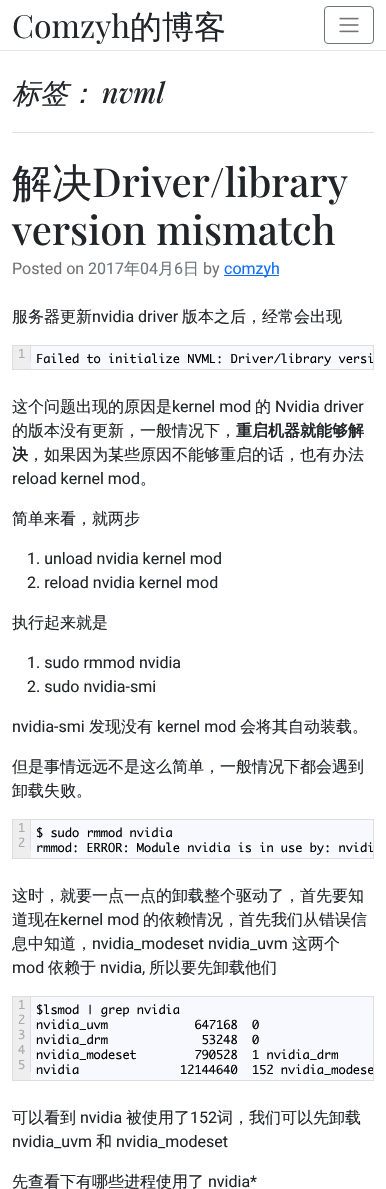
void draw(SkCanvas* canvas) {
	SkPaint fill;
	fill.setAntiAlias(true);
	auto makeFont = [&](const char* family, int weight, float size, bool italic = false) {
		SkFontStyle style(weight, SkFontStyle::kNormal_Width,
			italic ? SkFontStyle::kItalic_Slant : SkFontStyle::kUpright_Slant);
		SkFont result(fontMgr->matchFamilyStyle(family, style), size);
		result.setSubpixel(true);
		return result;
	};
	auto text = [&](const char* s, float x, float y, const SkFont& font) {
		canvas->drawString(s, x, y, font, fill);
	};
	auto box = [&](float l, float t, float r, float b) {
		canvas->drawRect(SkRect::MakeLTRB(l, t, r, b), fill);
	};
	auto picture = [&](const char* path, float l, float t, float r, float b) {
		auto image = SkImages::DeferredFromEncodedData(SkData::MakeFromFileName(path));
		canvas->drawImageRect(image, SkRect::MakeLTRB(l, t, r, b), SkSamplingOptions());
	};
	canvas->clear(0xFFFFFFFF);
	fill.setColor(0xFFE5E5E5);
	box(0, 50, 386, 51);
	fill.setStyle(SkPaint::kStroke_Style);
	fill.setStrokeWidth(1);
	fill.setColor(0xFF6C757D);
	canvas->drawRoundRect(SkRect::MakeLTRB(324.5f, 6.5f, 373.5f, 43.5f), 3.5f, 3.5f, fill);
	picture("image0.png", 339, 17, 359, 33);
	fill.setStyle(SkPaint::kFill_Style);
	fill.setColor(0xFFDEE2E6);
	box(12, 132, 374, 133);
	fill.setColor(0xFF0D6EFD);
	box(224, 275, 279, 276);
	fill.setColor(0xFFF8F8FF);
	box(31, 346, 373, 369);
	fill.setStyle(SkPaint::kStroke_Style);
	fill.setColor(0xFFDEDEDE);
	canvas->drawRect(SkRect::MakeLTRB(12.5f, 345.5f, 373.5f, 369.5f), fill);
	fill.setStyle(SkPaint::kFill_Style);
	fill.setColor(0xFFEEEEEE);
	box(13, 346, 31, 369);
	fill.setColor(0xFFDEDEDE);
	box(30, 346, 31, 361);
	fill.setColor(0xFFF8F8FF);
	box(31, 820, 373, 858);
	fill.setStyle(SkPaint::kStroke_Style);
	fill.setColor(0xFFDEDEDE);
	canvas->drawRect(SkRect::MakeLTRB(12.5f, 819.5f, 373.5f, 858.5f), fill);
	fill.setStyle(SkPaint::kFill_Style);
	fill.setColor(0xFFEEEEEE);
	box(13, 820, 31, 858);
	fill.setColor(0xFFDEDEDE);
	box(30, 820, 31, 850);
	fill.setColor(0xFFF8F8FF);
	box(31, 997, 373, 1080);
	fill.setStyle(SkPaint::kStroke_Style);
	fill.setColor(0xFFDEDEDE);
	canvas->drawRect(SkRect::MakeLTRB(12.5f, 996.5f, 373.5f, 1080.5f), fill);
	fill.setStyle(SkPaint::kFill_Style);
	fill.setColor(0xFFEEEEEE);
	box(13, 997, 31, 1080);
	fill.setColor(0xFFDEDEDE);
	box(30, 997, 31, 1072);
	auto font1 = makeFont("Playfair Display", 400, 32);
	fill.setColor(0xFF212529);
	text("Comzyh", 12, 38, font1);
	auto font2 = makeFont("WenQuanYi Zen Hei", 500, 32);
	text("的博客", 130, 38, font2);
	auto font3 = makeFont("WenQuanYi Zen Hei", 500, 28, true);
	text("标签：", 12, 103, font3);
	auto font4 = makeFont("Playfair Display", 500, 28, true);
	text("nvml", 102, 103, font4);
	auto font5 = makeFont("WenQuanYi Zen Hei", 500, 40);
	text("解决", 12, 197, font5);
	auto font6 = makeFont("Playfair Display", 500, 40);
	text("Driver/library", 92, 197, font6);
	text("version mismatch", 12, 245, font6);
	auto font7 = makeFont("Roboto", 400, 16);
	fill.setColor(0xFF727272);
	text("Posted on", 12, 274, font7);
	fill.setColor(0xFF6C757D);
	text("2017", 88, 274, font7);
	auto font8 = makeFont("WenQuanYi Zen Hei", 500, 16);
	text("年", 124, 274, font8);
	text("04", 140, 274, font7);
	text("月", 158, 274, font8);
	text("6", 174, 274, font7);
	text("日", 183, 274, font8);
	fill.setColor(0xFF727272);
	text("by", 203, 274, font7);
	fill.setColor(0xFF0D6EFD);
	text("comzyh", 224, 274, font7);
	fill.setColor(0xFF212529);
	text("服务器更新", 12, 322, font8);
	text("nvidia driver", 92, 322, font7);
	text("版本之后，经常会出现", 182, 322, font8);
	auto font9 = makeFont("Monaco", 400, 12);
	fill.setColor(0xFFAAAAAA);
	text("1", 18, 358, font9);
	fill.setColor(0xFF000000);
	text("Failed to initialize NVML: Driver/library versi", 36, 363, font9);
	fill.setColor(0xFF212529);
	text("这个问题出现的原因是", 12, 412, font8);
	text("kernel mod", 172, 412, font7);
	text("的", 255, 412, font8);
	text("Nvidia driver", 275, 412, font7);
	text("的版本没有更新，一般情况下，", 12, 436, font8);
	auto font10 = makeFont("WenQuanYi Zen Hei", 700, 16);
	text("重启机器就能够解", 236, 436, font10);
	text("决", 12, 460, font10);
	text("，如果因为某些原因不能够重启的话，也有办法", 28, 460, font8);
	text("reload kernel mod", 12, 484, font7);
	text("。", 140, 484, font8);
	text("简单来看，就两步", 12, 524, font8);
	text("1. unload nvidia kernel mod", 27, 564, font7);
	text("2. reload nvidia kernel mod", 27, 588, font7);
	text("执行起来就是", 12, 628, font8);
	text("1. sudo rmmod nvidia", 27, 668, font7);
	text("2. sudo nvidia-smi", 27, 692, font7);
	text("nvidia-smi", 12, 732, font7);
	text("发现没有", 89, 732, font8);
	text("kernel mod", 157, 732, font7);
	text("会将其自动装载。", 240, 732, font8);
	text("但是事情远远不是这么简单，一般情况下都会遇到", 12, 772, font8);
	text("卸载失败。", 12, 796, font8);
	fill.setColor(0xFFAAAAAA);
	text("1", 18, 832, font9);
	text("2", 18, 847, font9);
	fill.setColor(0xFF000000);
	text("$ sudo rmmod nvidia", 36, 837, font9);
	text("rmmod: ERROR: Module nvidia is in use by: nvidi", 36, 852, font9);
	fill.setColor(0xFF212529);
	text("这时，就要一点一点的卸载整个驱动了，首先要知", 12, 901, font8);
	text("道现在", 12, 925, font8);
	text("kernel mod", 60, 925, font7);
	text("的依赖情况，首先我们从错误信", 143, 925, font8);
	text("息中知道，", 12, 949, font8);
	text("nvidia_modeset nvidia_uvm", 92, 949, font7);
	text("这两个", 292, 949, font8);
	text("mod", 12, 973, font7);
	text("依赖于", 48, 973, font8);
	text("nvidia,", 100, 973, font7);
	text("所以要先卸载他们", 149, 973, font8);
	fill.setColor(0xFFAAAAAA);
	text("1", 18, 1009, font9);
	text("2", 18, 1024, font9);
	text("3", 18, 1039, font9);
	text("4", 18, 1054, font9);
	text("5", 18, 1069, font9);
	fill.setColor(0xFF000000);
	text("$lsmod | grep nvidia", 36, 1014, font9);
	text("nvidia_uvm            647168  0", 36, 1029, font9);
	text("nvidia_drm             53248  0", 36, 1044, font9);
	text("nvidia_modeset        790528  1 nvidia_drm", 36, 1059, font9);
	canvas->save();
	canvas->clipRect(SkRect::MakeLTRB(13, 997, 373, 1080));
	text("nvidia              12144640  152 nvidia_modese", 36, 1074, font9);
	canvas->restore();
	fill.setColor(0xFF212529);
	text("可以看到", 12, 1123, font8);
	text("nvidia", 80, 1123, font7);
	text("被使用了", 126, 1123, font8);
	text("152", 190, 1123, font7);
	text("词，我们可以先卸载", 217, 1123, font8);
	text("nvidia_uvm", 12, 1147, font7);
	text("和", 96, 1147, font8);
	text("nvidia_modeset", 116, 1147, font7);
	text("先查看下有哪些进程使用了", 12, 1187, font8);
	text("nvidia*", 208, 1187, font7);
}
